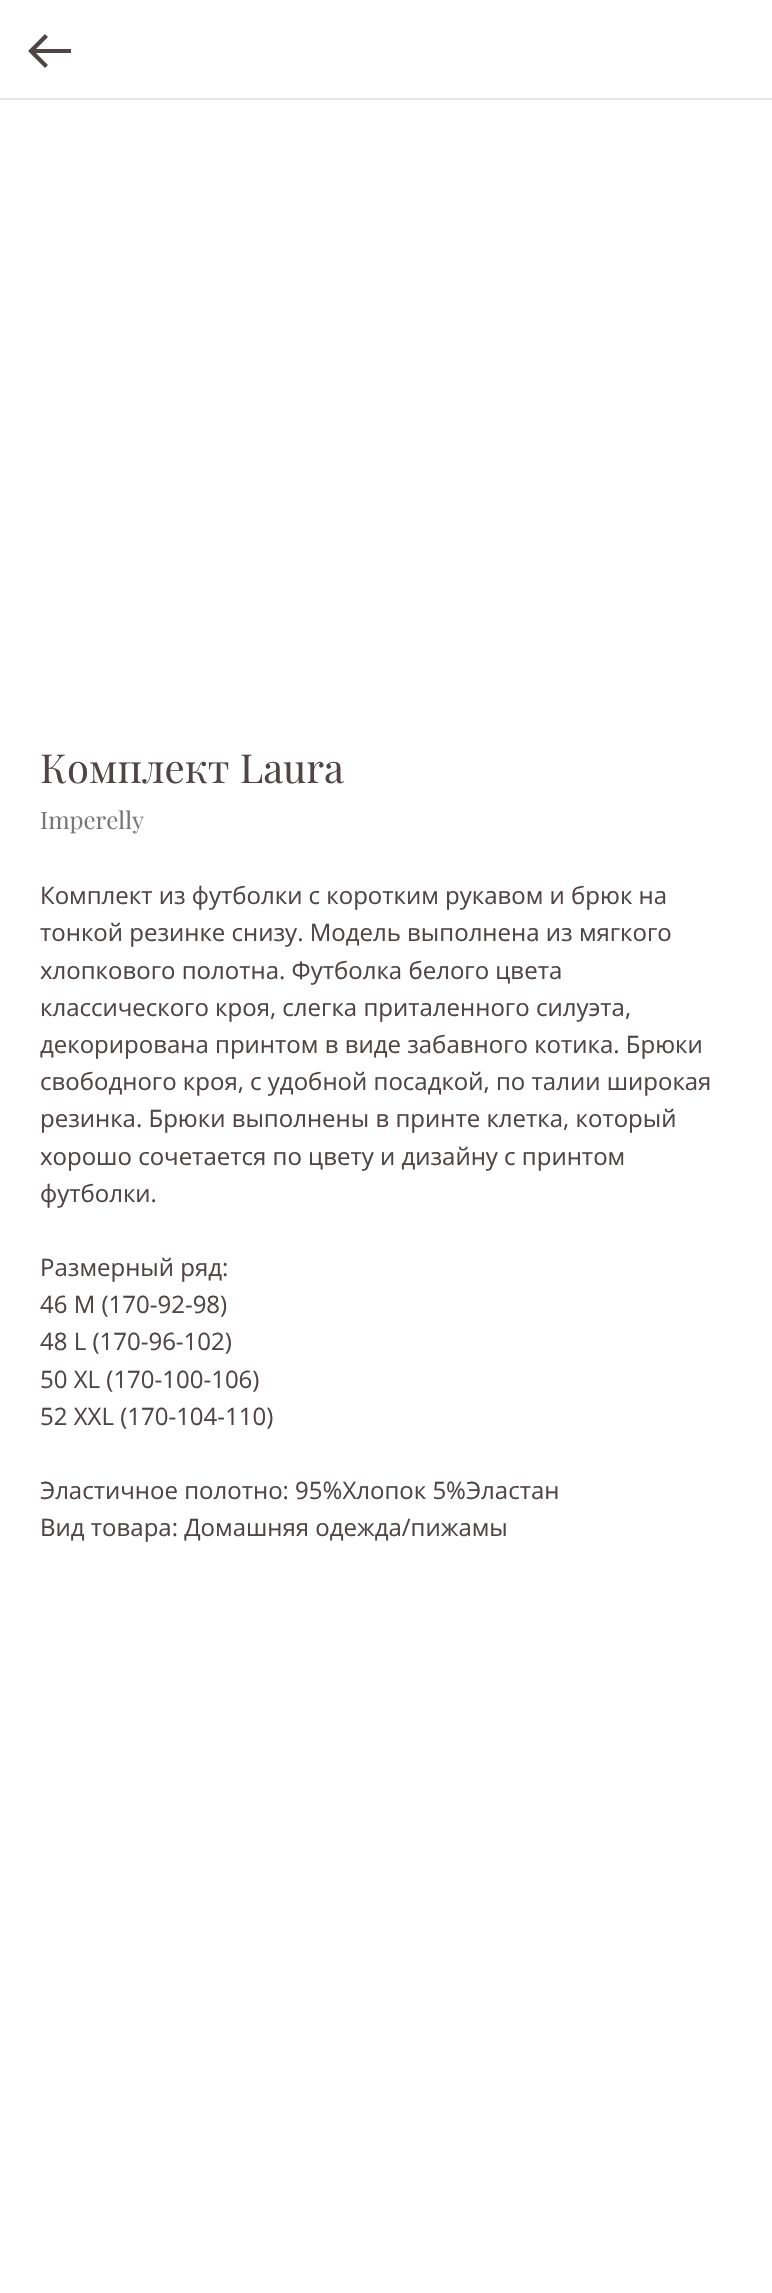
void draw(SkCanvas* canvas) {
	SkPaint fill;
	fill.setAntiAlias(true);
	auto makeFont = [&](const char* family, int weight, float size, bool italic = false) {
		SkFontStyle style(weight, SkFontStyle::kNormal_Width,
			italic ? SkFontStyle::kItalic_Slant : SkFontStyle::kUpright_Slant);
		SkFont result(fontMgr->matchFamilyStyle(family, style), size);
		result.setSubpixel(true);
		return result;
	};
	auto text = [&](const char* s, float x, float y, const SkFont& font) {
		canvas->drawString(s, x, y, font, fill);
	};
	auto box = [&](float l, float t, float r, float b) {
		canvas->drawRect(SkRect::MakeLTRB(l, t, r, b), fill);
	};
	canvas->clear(0xFFFFFFFF);
	fill.setColor(0xFFE6E6E6);
	box(0, 98, 772, 100);
	fill.setColor(0xFF4F4546);
	canvas->drawPath(SkPathBuilder().moveTo(45, 34).lineTo(48, 37).lineTo(36, 49).lineTo(71, 49).lineTo(71, 53).lineTo(36, 53).lineTo(48, 65).lineTo(45, 68).lineTo(28, 51).close().detach(), fill);
	auto font1 = makeFont("Playfair Display", 400, 40);
	text("Комплект Laura", 40, 783, font1);
	auto font2 = makeFont("Playfair Display", 400, 24);
	fill.setColor(0xFF777777);
	text("Imperelly", 40, 829, font2);
	auto font3 = makeFont("Open Sans", 400, 24);
	fill.setColor(0xFF4F4546);
	text("Комплект из футболки с коротким рукавом и брюк на", 40, 904, font3);
	text("тонкой резинке снизу. Модель выполнена из мягкого", 40, 941, font3);
	text("хлопкового полотна. Футболка белого цвета", 40, 979, font3);
	text("классического кроя, слегка приталенного силуэта,", 40, 1016, font3);
	text("декорирована принтом в виде забавного котика. Брюки", 40, 1053, font3);
	text("свободного кроя, с удобной посадкой, по талии широкая", 40, 1090, font3);
	text("резинка. Брюки выполнены в принте клетка, который", 40, 1127, font3);
	text("хорошо сочетается по цвету и дизайну с принтом", 40, 1165, font3);
	text("футболки.", 40, 1202, font3);
	text("Размерный ряд:", 40, 1276, font3);
	text("46 M (170-92-98)", 40, 1313, font3);
	text("48 L (170-96-102)", 40, 1350, font3);
	text("50 XL (170-100-106)", 40, 1388, font3);
	text("52 XXL (170-104-110)", 40, 1425, font3);
	text("Эластичное полотно: 95%Хлопок 5%Эластан", 40, 1499, font3);
	text("Вид товара: Домашняя одежда/пижамы", 40, 1536, font3);
}
